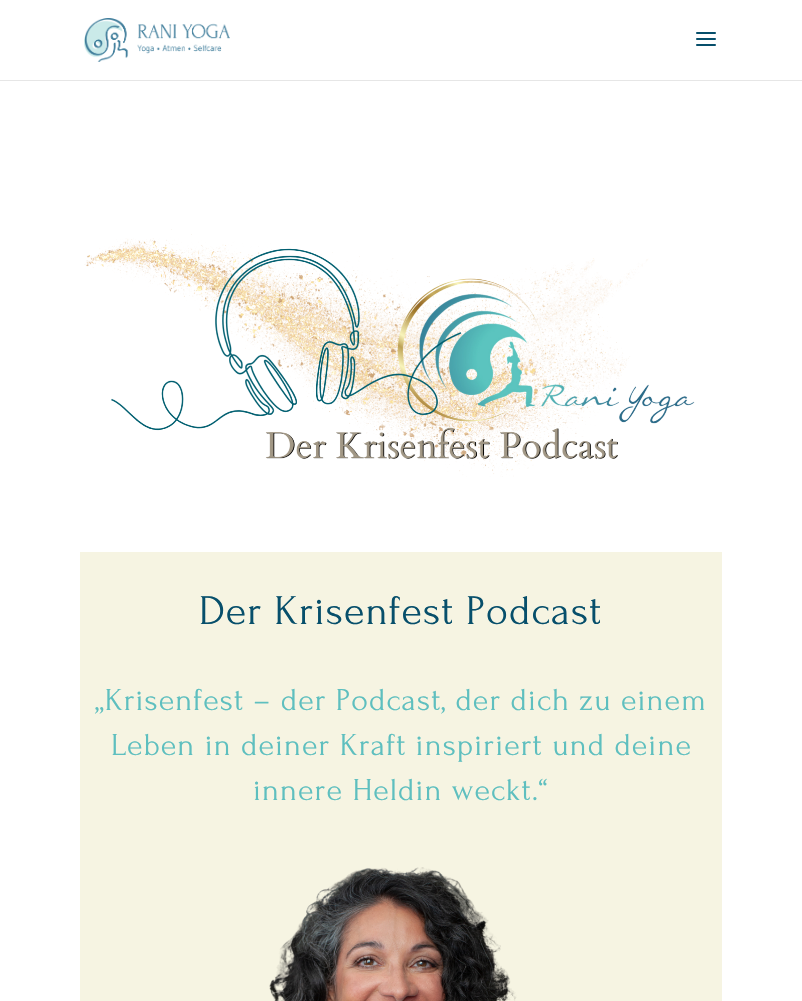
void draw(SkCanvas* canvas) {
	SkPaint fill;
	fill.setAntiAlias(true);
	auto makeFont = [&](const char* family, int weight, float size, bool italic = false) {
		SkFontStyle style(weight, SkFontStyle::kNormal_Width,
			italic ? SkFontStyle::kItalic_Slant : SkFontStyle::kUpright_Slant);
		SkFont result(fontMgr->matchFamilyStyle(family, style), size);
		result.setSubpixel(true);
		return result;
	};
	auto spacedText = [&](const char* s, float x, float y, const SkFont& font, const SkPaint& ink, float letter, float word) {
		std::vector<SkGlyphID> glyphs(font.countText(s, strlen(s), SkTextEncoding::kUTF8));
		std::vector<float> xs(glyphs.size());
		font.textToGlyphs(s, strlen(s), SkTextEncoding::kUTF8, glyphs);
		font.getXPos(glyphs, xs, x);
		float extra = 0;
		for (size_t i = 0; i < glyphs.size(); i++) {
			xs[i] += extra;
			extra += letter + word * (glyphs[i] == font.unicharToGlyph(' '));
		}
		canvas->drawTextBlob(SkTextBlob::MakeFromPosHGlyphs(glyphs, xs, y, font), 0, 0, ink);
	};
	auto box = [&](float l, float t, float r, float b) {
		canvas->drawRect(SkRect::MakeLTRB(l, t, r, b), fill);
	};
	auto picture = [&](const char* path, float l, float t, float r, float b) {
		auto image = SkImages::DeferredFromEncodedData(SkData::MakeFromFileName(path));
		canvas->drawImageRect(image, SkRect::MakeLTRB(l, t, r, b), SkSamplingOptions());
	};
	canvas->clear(0xFFFFFFFF);
	fill.setColor(0xFFE6E6E6);
	box(0, 80, 802, 81);
	picture("image0.png", 84, 18, 230, 62);
	picture("image1.png", 696, 32, 716, 46);
	picture("image2.png", 84, 229, 695, 477);
	fill.setColor(0xFFF6F4E2);
	box(80, 552, 722, 1001);
	picture("image3.png", 269, 867, 517, 1001);
	auto font1 = makeFont("Forum", 400, 42);
	fill.setColor(0xFF074F6B);
	spacedText("Der Krisenfest Podcast", 199, 624, font1, fill, 1, 0);
	auto font2 = makeFont("Forum", 400, 32);
	fill.setColor(0xFF5EBFBF);
	spacedText("„Krisenfest – der Podcast, der dich zu einem", 95, 710, font2, fill, 1, 0);
	spacedText("Leben in deiner Kraft inspiriert und deine", 111, 755, font2, fill, 1, 0);
	spacedText("innere Heldin weckt.“", 253, 800, font2, fill, 1, 0);
}
